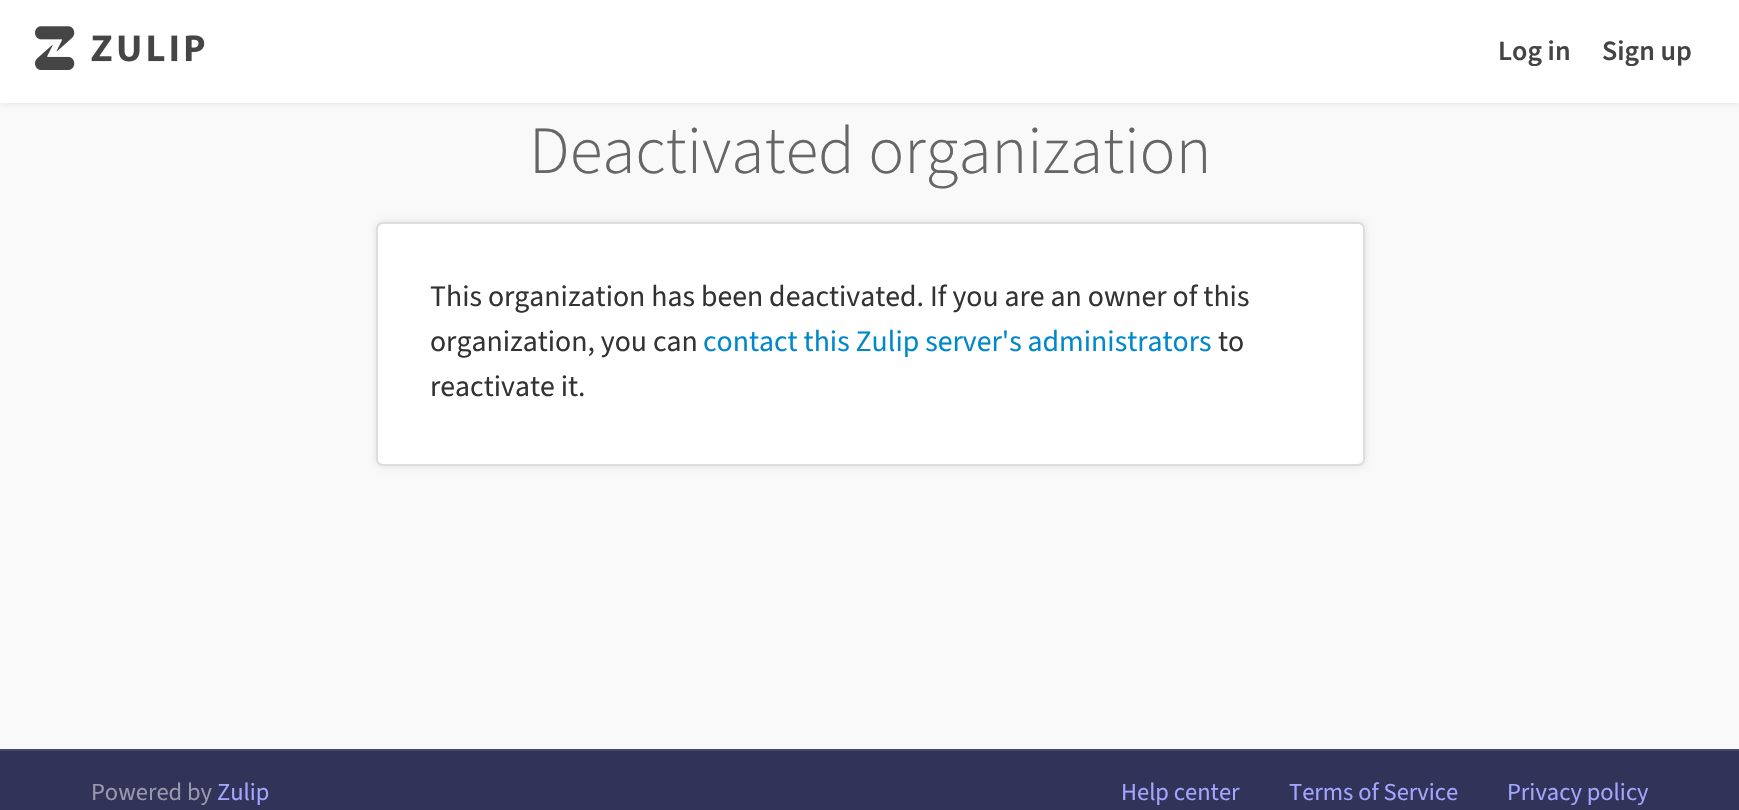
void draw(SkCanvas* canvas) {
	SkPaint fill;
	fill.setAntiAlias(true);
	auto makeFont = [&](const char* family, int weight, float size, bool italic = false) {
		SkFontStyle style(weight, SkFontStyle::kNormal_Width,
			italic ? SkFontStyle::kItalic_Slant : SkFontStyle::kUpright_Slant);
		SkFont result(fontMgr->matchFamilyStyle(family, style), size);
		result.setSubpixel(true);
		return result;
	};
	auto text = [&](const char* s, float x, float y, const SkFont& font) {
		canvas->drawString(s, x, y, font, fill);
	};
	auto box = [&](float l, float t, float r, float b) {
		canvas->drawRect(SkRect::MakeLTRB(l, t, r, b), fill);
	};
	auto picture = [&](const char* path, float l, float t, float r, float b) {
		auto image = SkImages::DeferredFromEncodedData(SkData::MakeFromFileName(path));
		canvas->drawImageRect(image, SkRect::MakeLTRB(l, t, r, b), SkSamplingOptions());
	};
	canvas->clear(0xFFF9F9F9);
	fill.setColor(0x1A000000);
	fill.setMaskFilter(SkMaskFilter::MakeBlur(kNormal_SkBlurStyle, 3.5f));
	canvas->drawRect(SkRect::MakeLTRB(0, 0, 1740, 103), fill);
	fill.setMaskFilter(nullptr);
	fill.setColor(0xFFFFFFFF);
	box(0, 0, 1739, 103);
	picture("image0.png", 35, 26, 205, 70);
	fill.setColor(0x1A000000);
	fill.setMaskFilter(SkMaskFilter::MakeBlur(kNormal_SkBlurStyle, 3.5f));
	canvas->drawRoundRect(SkRect::MakeLTRB(376, 222, 1365, 466), 7, 7, fill);
	fill.setMaskFilter(nullptr);
	fill.setColor(0xFFFFFFFF);
	canvas->drawRoundRect(SkRect::MakeLTRB(377, 223, 1364, 465), 6, 6, fill);
	fill.setStyle(SkPaint::kStroke_Style);
	fill.setStrokeWidth(2);
	fill.setColor(0xFFDDDDDD);
	canvas->drawRoundRect(SkRect::MakeLTRB(377, 223, 1364, 465), 6, 6, fill);
	fill.setStyle(SkPaint::kFill_Style);
	fill.setColor(0xFF323358);
	box(0, 751, 1739, 810);
	fill.setColor(0xFF474769);
	box(0, 749, 1739, 751);
	auto font1 = makeFont("Source Sans 3", 600, 28);
	fill.setColor(0xFF444444);
	text("Log in", 1498, 60, font1);
	text("Sign up", 1602, 60, font1);
	auto font2 = makeFont("Source Sans 3", 300, 67.4f);
	fill.setColor(0xFF666666);
	text("Deactivated organization", 529, 173, font2);
	auto font3 = makeFont("Source Sans 3", 400, 29.75f);
	fill.setColor(0xFF333333);
	text("This organization has been deactivated. If you are an owner of this", 430, 306, font3);
	text("organization, you can", 430, 351, font3);
	fill.setColor(0xFF0088CC);
	text("contact this Zulip server's administrators", 703, 351, font3);
	fill.setColor(0xFF333333);
	text("to", 1218, 351, font3);
	text("reactivate it.", 430, 396, font3);
	auto font4 = makeFont("Source Sans 3", 400, 24.5f);
	fill.setColor(0xFF9999AC);
	text("Powered by", 91, 800, font4);
	fill.setColor(0xFFA3A6FF);
	text("Zulip", 217, 800, font4);
	text("Help center", 1121, 800, font4);
	text("Terms of Service", 1289, 800, font4);
	text("Privacy policy", 1507, 800, font4);
}
